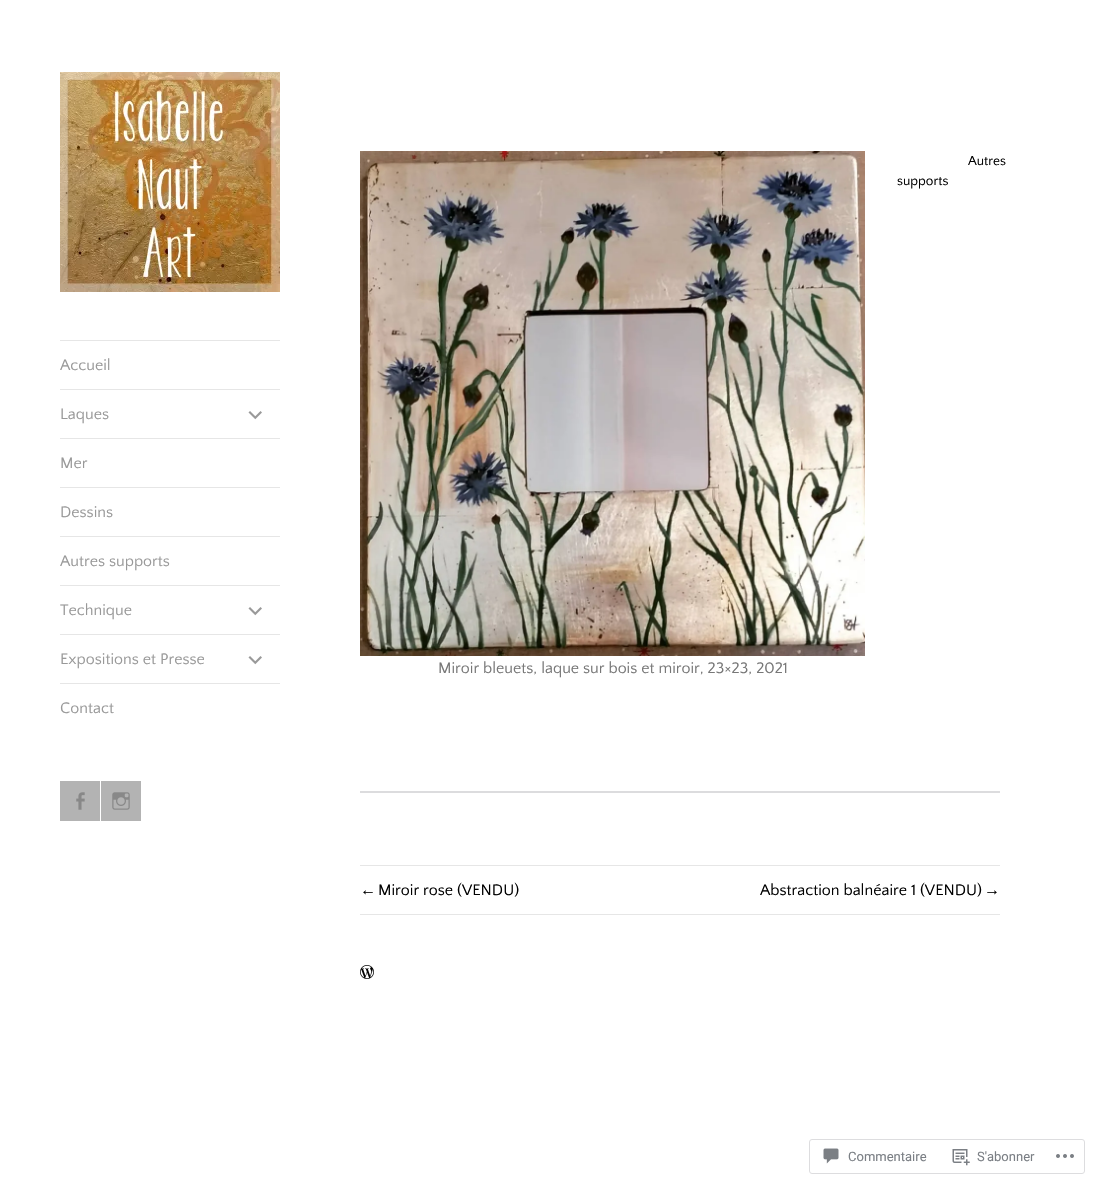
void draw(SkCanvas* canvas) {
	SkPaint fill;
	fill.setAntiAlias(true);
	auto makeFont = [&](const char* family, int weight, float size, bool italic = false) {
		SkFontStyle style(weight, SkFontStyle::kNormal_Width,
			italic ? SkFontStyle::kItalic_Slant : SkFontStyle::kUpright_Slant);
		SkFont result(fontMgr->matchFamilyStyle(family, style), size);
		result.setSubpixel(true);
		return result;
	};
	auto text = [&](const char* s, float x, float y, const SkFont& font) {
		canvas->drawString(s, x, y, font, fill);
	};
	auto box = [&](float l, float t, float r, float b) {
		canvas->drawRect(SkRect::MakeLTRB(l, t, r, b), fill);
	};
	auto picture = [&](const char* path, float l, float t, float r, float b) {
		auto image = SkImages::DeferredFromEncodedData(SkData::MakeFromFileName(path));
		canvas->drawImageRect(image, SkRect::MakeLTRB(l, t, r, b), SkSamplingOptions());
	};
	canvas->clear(0xFFFFFFFF);
	picture("image0.png", 60, 72, 280, 292);
	fill.setColor(0xFFE6E6E6);
	box(60, 340, 280, 341);
	box(60, 389, 280, 390);
	picture("image1.png", 248, 411, 262, 420);
	box(60, 438, 280, 439);
	box(60, 487, 280, 488);
	box(60, 536, 280, 537);
	box(60, 585, 280, 586);
	picture("image1.png", 248, 607, 262, 616);
	box(60, 634, 280, 635);
	picture("image1.png", 248, 656, 262, 665);
	box(60, 683, 280, 684);
	fill.setColor(0xFFB3B3B3);
	box(60, 781, 100, 821);
	picture("image2.png", 76, 792, 85, 810);
	box(101, 781, 141, 821);
	picture("image3.png", 112, 792, 130, 810);
	picture("image4.png", 360, 151, 865, 656);
	fill.setColor(0xFFDCDCDE);
	box(360, 791, 1000, 793);
	fill.setColor(0xFFE6E6E6);
	box(360, 865, 1000, 866);
	box(360, 914, 1000, 915);
	picture("image5.png", 360, 965, 374, 979);
	fill.setStyle(SkPaint::kStroke_Style);
	fill.setStrokeWidth(1);
	fill.setColor(0xFFDDDDDF);
	canvas->drawRoundRect(SkRect::MakeLTRB(809.5f, 1139.5f, 1084.5f, 1173.5f), 2.5f, 2.5f, fill);
	picture("image6.png", 823, 1148, 839, 1164);
	picture("image7.png", 952, 1149, 970, 1166);
	picture("image8.png", 1056, 1154, 1074, 1158);
	auto font1 = makeFont("Quattrocento Sans", 400, 16);
	fill.setStyle(SkPaint::kFill_Style);
	fill.setColor(0xFF999999);
	text("Accueil", 60, 370, font1);
	text("Laques", 60, 419, font1);
	text("Mer", 60, 468, font1);
	text("Dessins", 60, 517, font1);
	text("Autres supports", 60, 566, font1);
	text("Technique", 60, 615, font1);
	text("Expositions et Presse", 60, 664, font1);
	text("Contact", 60, 713, font1);
	auto font2 = makeFont("Quattrocento Sans", 400, 13.5f);
	fill.setColor(0xFF000000);
	text("Autres", 968, 165, font2);
	text("supports", 897, 185, font2);
	fill.setColor(0xFF777777);
	text("Miroir bleuets, laque sur bois et miroir, 23×23, 2021", 438, 673, font1);
	auto font3 = makeFont("Liberation Sans", 400, 16);
	fill.setColor(0xFF000000);
	text("←", 360, 895, font3);
	text("Miroir rose (VENDU)", 378, 895, font1);
	text("Abstraction balnéaire 1 (VENDU)", 760, 895, font1);
	text("→", 984, 895, font3);
	auto font4 = makeFont("Roboto", 400, 13);
	fill.setColor(0xFF7B7F85);
	text("Commentaire", 848, 1161, font4);
	text("S'abonner", 977, 1161, font4);
}
